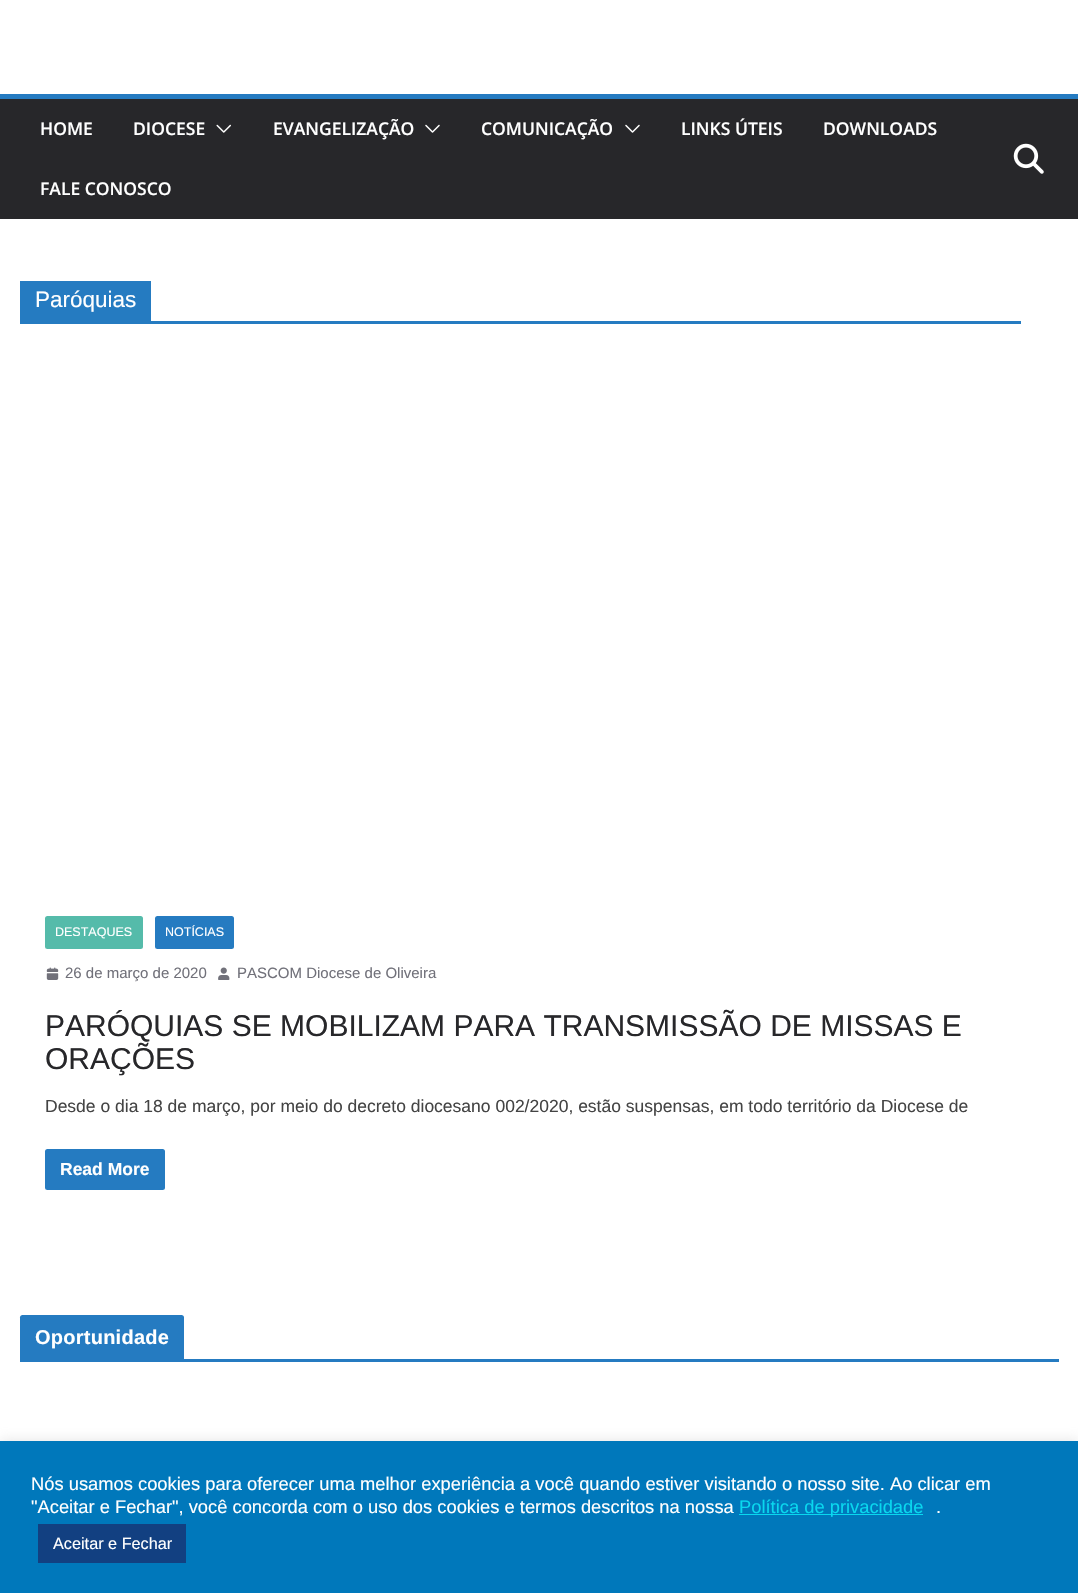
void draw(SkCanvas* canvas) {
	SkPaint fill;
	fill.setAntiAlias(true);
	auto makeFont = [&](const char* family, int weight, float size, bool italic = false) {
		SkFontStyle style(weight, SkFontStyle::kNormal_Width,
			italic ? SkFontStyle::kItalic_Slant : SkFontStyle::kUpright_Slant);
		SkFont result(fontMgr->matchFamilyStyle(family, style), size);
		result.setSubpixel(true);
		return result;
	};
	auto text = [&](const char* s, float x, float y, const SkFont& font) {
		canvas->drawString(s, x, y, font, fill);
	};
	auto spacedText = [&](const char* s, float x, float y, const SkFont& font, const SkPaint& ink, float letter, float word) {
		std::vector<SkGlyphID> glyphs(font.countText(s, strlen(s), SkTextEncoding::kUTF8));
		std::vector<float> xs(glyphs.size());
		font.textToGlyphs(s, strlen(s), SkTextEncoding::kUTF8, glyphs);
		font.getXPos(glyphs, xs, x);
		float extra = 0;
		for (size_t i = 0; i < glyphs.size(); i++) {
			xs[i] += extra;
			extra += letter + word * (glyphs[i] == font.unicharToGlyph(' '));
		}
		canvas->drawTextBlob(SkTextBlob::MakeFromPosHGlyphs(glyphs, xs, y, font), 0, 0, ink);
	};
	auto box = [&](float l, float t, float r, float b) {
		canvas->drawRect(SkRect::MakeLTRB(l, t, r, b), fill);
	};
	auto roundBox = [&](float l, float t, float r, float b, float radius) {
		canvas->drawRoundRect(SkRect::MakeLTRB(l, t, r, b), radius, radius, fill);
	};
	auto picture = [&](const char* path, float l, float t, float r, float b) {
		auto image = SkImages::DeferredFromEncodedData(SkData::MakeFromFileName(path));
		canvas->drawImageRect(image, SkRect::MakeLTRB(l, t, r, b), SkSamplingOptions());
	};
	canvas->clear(0xFFFFFFFF);
	fill.setColor(0xFF27272A);
	box(0, 99, 1078, 219);
	fill.setColor(0xFF257BC1);
	box(0, 94, 1078, 99);
	picture("image0.png", 216, 124, 231, 133);
	picture("image1.png", 425, 124, 440, 133);
	picture("image1.png", 625, 124, 640, 133);
	picture("image2.png", 1013, 143, 1044, 174);
	box(20, 321, 1021, 324);
	box(20, 281, 151, 321);
	fill.setColor(0xFF55BBAA);
	roundBox(45, 916, 143, 949, 2.5f);
	fill.setColor(0xFF257BC1);
	roundBox(155, 916, 234, 949, 2.5f);
	picture("image3.png", 46, 967, 59, 980);
	picture("image4.png", 218, 967, 230, 980);
	roundBox(45, 1149, 165, 1190, 2.5f);
	box(20, 1359, 1059, 1362);
	canvas->drawPath(SkPathBuilder().moveTo(22.5f, 1315).lineTo(181.5f, 1315).cubicTo(183, 1315, 184, 1316, 184, 1317.5f).lineTo(184, 1359).lineTo(20, 1359).lineTo(20, 1317.5f).cubicTo(20, 1316, 21, 1315, 22.5f, 1315).close().detach(), fill);
	fill.setColor(0x4DACABAB);
	fill.setMaskFilter(SkMaskFilter::MakeBlur(kNormal_SkBlurStyle, 6));
	canvas->drawRect(SkRect::MakeLTRB(0, 1440, 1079, 1593), fill);
	fill.setMaskFilter(nullptr);
	fill.setColor(0xFF0078BB);
	box(0, 1441, 1078, 1593);
	fill.setColor(0xFF09D8EF);
	box(739, 1514, 923, 1515);
	fill.setColor(0xFF124081);
	box(38, 1524, 186, 1563);
	auto font1 = makeFont("Open Sans", 600, 17.5f);
	fill.setColor(0xFFFFFFFF);
	text("HOME", 40, 135, font1);
	text("DIOCESE", 133, 135, font1);
	text("EVANGELIZAÇÃO", 273, 135, font1);
	text("COMUNICAÇÃO", 481, 135, font1);
	text("LINKS ÚTEIS", 681, 135, font1);
	text("DOWNLOADS", 823, 135, font1);
	text("FALE CONOSCO", 40, 195, font1);
	auto font2 = makeFont("Liberation Sans", 400, 22.5f);
	text("Paróquias", 35, 307, font2);
	auto font3 = makeFont("Liberation Sans", 400, 12.5f);
	text("DESTAQUES", 55, 936, font3);
	text("NOTÍCIAS", 165, 936, font3);
	auto font4 = makeFont("Liberation Sans", 400, 15);
	fill.setColor(0xFF71717A);
	text("26 de março de 2020", 65, 978, font4);
	text("PASCOM Diocese de Oliveira", 237, 978, font4);
	auto font5 = makeFont("Liberation Sans", 400, 30);
	fill.setColor(0xFF27272A);
	text("PARÓQUIAS SE MOBILIZAM PARA TRANSMISSÃO DE MISSAS E", 45, 1036, font5);
	text("ORAÇÕES", 45, 1069, font5);
	auto font6 = makeFont("Liberation Sans", 400, 17.5f);
	fill.setColor(0xFF444444);
	text("Desde o dia 18 de março, por meio do decreto diocesano 002/2020, estão suspensas, em todo território da Diocese de", 45, 1112, font6);
	auto font7 = makeFont("Liberation Sans", 700, 17.5f);
	fill.setColor(0xFFFFFFFF);
	text("Read More", 60, 1175, font7);
	auto font8 = makeFont("Liberation Sans", 700, 20);
	spacedText("Oportunidade", 35, 1344, font8, fill, 0.25f, 0);
	auto font9 = makeFont("Liberation Sans", 400, 18.33f);
	text("Nós usamos cookies para oferecer uma melhor experiência a você quando estiver visitando o nosso site. Ao clicar em", 31, 1490, font9);
	text("\"Aceitar e Fechar\", você concorda com o uso dos cookies e termos descritos na nossa", 31, 1513, font9);
	fill.setColor(0xFF09D8EF);
	text("Política de privacidade", 739, 1513, font9);
	fill.setColor(0xFFFFFFFF);
	text(".", 936, 1513, font9);
	auto font10 = makeFont("Liberation Sans", 400, 16.25f);
	text("Aceitar e Fechar", 53, 1549, font10);
}
